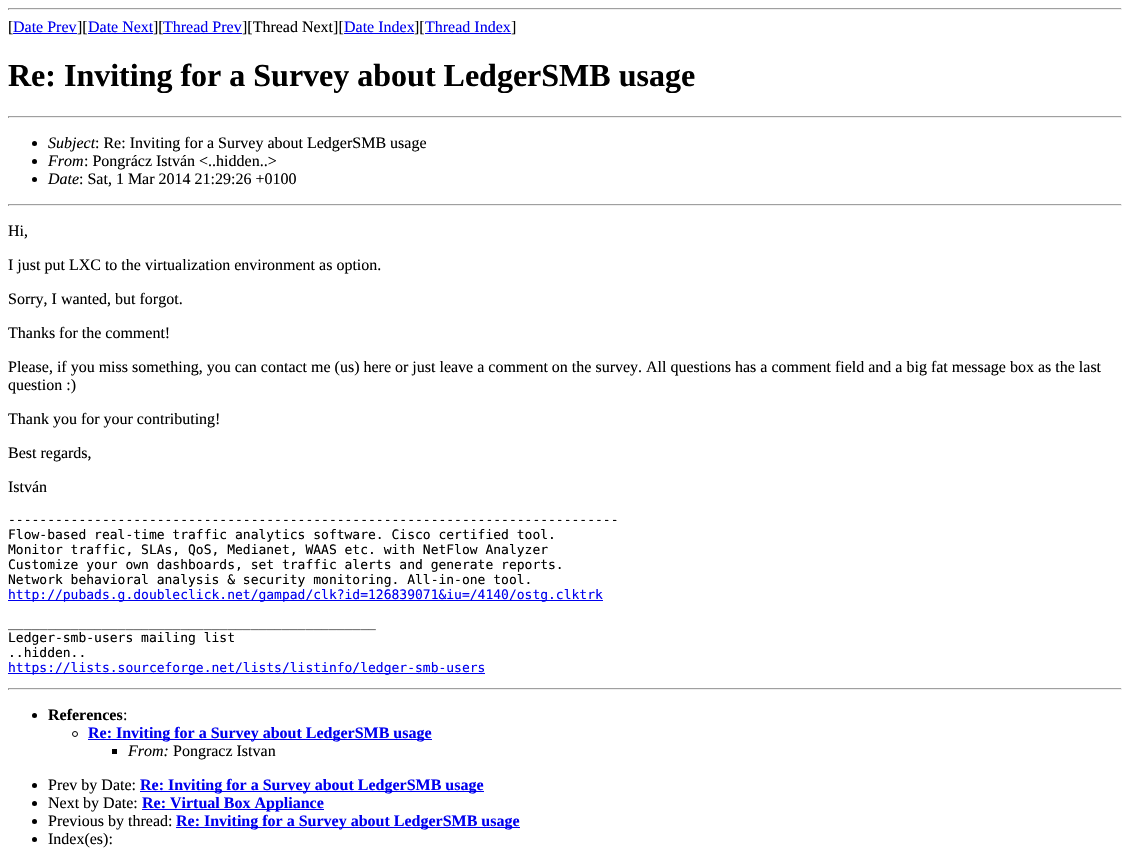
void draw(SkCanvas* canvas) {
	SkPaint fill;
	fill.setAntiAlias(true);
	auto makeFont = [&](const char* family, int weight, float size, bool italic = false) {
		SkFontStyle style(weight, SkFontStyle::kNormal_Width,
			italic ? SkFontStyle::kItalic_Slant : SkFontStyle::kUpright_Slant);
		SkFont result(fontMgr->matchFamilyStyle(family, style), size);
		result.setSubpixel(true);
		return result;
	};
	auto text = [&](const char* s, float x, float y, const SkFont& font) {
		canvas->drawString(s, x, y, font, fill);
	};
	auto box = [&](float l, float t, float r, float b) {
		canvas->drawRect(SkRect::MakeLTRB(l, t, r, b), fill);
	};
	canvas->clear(0xFFFFFFFF);
	fill.setColor(0xFF9F9F9F);
	box(8, 8, 1122, 9);
	fill.setColor(0xFFEEEEEE);
	box(1121, 8, 1122, 10);
	box(8, 9, 1122, 10);
	fill.setColor(0xFF9F9F9F);
	box(8, 8, 9, 10);
	fill.setColor(0xFF0000EE);
	box(13, 33, 77, 34);
	box(88, 33, 153, 34);
	box(163, 33, 242, 34);
	box(344, 33, 414, 34);
	box(425, 33, 511, 34);
	fill.setColor(0xFF9F9F9F);
	box(8, 116, 1122, 117);
	fill.setColor(0xFFEEEEEE);
	box(1121, 116, 1122, 118);
	box(8, 117, 1122, 118);
	fill.setColor(0xFF9F9F9F);
	box(8, 116, 9, 118);
	fill.setColor(0xFF000000);
	canvas->drawCircle(34.5f, 143.5f, 2.5f, fill);
	canvas->drawCircle(34.5f, 161.5f, 2.5f, fill);
	canvas->drawCircle(34.5f, 179.5f, 2.5f, fill);
	fill.setColor(0xFF9F9F9F);
	box(8, 204, 1122, 205);
	fill.setColor(0xFFEEEEEE);
	box(1121, 204, 1122, 206);
	box(8, 205, 1122, 206);
	fill.setColor(0xFF9F9F9F);
	box(8, 204, 9, 206);
	fill.setColor(0xFF0000EE);
	box(8, 600, 603, 601);
	box(8, 673, 485, 674);
	fill.setColor(0xFF9F9F9F);
	box(8, 688, 1122, 689);
	fill.setColor(0xFFEEEEEE);
	box(1121, 688, 1122, 690);
	box(8, 689, 1122, 690);
	fill.setColor(0xFF9F9F9F);
	box(8, 688, 9, 690);
	fill.setColor(0xFF000000);
	canvas->drawCircle(34.5f, 715.5f, 2.5f, fill);
	fill.setStyle(SkPaint::kStroke_Style);
	fill.setStrokeWidth(1);
	canvas->drawCircle(75, 734, 2.5f, fill);
	fill.setStyle(SkPaint::kFill_Style);
	fill.setColor(0xFF0000EE);
	box(88, 739, 432, 740);
	fill.setColor(0xFF000000);
	box(112, 749, 117, 754);
	canvas->drawCircle(34.5f, 785.5f, 2.5f, fill);
	fill.setColor(0xFF0000EE);
	box(140, 791, 484, 792);
	fill.setColor(0xFF000000);
	canvas->drawCircle(34.5f, 803.5f, 2.5f, fill);
	fill.setColor(0xFF0000EE);
	box(142, 809, 324, 810);
	fill.setColor(0xFF000000);
	canvas->drawCircle(34.5f, 821.5f, 2.5f, fill);
	fill.setColor(0xFF0000EE);
	box(176, 827, 520, 828);
	fill.setColor(0xFF000000);
	canvas->drawCircle(34.5f, 839.5f, 2.5f, fill);
	auto font1 = makeFont("Liberation Serif", 400, 16);
	text("[", 8, 32, font1);
	fill.setColor(0xFF0000EE);
	text("Date Prev", 13, 32, font1);
	fill.setColor(0xFF000000);
	text("][", 77, 32, font1);
	fill.setColor(0xFF0000EE);
	text("Date Next", 88, 32, font1);
	fill.setColor(0xFF000000);
	text("][", 153, 32, font1);
	fill.setColor(0xFF0000EE);
	text("Thread Prev", 163, 32, font1);
	fill.setColor(0xFF000000);
	text("][Thread Next][", 242, 32, font1);
	fill.setColor(0xFF0000EE);
	text("Date Index", 344, 32, font1);
	fill.setColor(0xFF000000);
	text("][", 414, 32, font1);
	fill.setColor(0xFF0000EE);
	text("Thread Index", 425, 32, font1);
	fill.setColor(0xFF000000);
	text("]", 511, 32, font1);
	auto font2 = makeFont("Liberation Serif", 700, 32);
	text("Re: Inviting for a Survey about LedgerSMB usage", 8, 86, font2);
	auto font3 = makeFont("Liberation Serif", 400, 16, true);
	text("Subject", 48, 148, font3);
	text(": Re: Inviting for a Survey about LedgerSMB usage", 95, 148, font1);
	text("From", 48, 166, font3);
	text(": Pongrácz István <..hidden..>", 84, 166, font1);
	text("Date", 48, 184, font3);
	text(": Sat, 1 Mar 2014 21:29:26 +0100", 79, 184, font1);
	text("Hi,", 8, 236, font1);
	text("I just put LXC to the virtualization environment as option.", 8, 270, font1);
	text("Sorry, I wanted, but forgot.", 8, 304, font1);
	text("Thanks for the comment!", 8, 338, font1);
	text("Please, if you miss something, you can contact me (us) here or just leave a comment on the survey. All questions has a comment field and a big fat message box as the last", 8, 372, font1);
	text("question :)", 8, 390, font1);
	text("Thank you for your contributing!", 8, 424, font1);
	text("Best regards,", 8, 458, font1);
	text("István", 8, 492, font1);
	auto font4 = makeFont("DejaVu Sans Mono", 400, 13);
	text("------------------------------------------------------------------------------", 8, 524, font4);
	text("Flow-based real-time traffic analytics software. Cisco certified tool.", 8, 539, font4);
	text("Monitor traffic, SLAs, QoS, Medianet, WAAS etc. with NetFlow Analyzer", 8, 554, font4);
	text("Customize your own dashboards, set traffic alerts and generate reports.", 8, 569, font4);
	text("Network behavioral analysis & security monitoring. All-in-one tool.", 8, 584, font4);
	fill.setColor(0xFF0000EE);
	text("http://pubads.g.doubleclick.net/gampad/clk?id=126839071&iu=/4140/ostg.clktrk", 8, 599, font4);
	fill.setColor(0xFF000000);
	text("_______________________________________________", 8, 627, font4);
	text("Ledger-smb-users mailing list", 8, 642, font4);
	text("..hidden..", 8, 657, font4);
	fill.setColor(0xFF0000EE);
	text("https://lists.sourceforge.net/lists/listinfo/ledger-smb-users", 8, 672, font4);
	auto font5 = makeFont("Liberation Serif", 700, 16);
	fill.setColor(0xFF000000);
	text("References", 48, 720, font5);
	text(":", 123, 720, font1);
	fill.setColor(0xFF0000EE);
	text("Re: Inviting for a Survey about LedgerSMB usage", 88, 738, font5);
	fill.setColor(0xFF000000);
	text("From:", 128, 756, font3);
	text("Pongracz Istvan", 173, 756, font1);
	text("Prev by Date:", 48, 790, font1);
	fill.setColor(0xFF0000EE);
	text("Re: Inviting for a Survey about LedgerSMB usage", 140, 790, font5);
	fill.setColor(0xFF000000);
	text("Next by Date:", 48, 808, font1);
	fill.setColor(0xFF0000EE);
	text("Re: Virtual Box Appliance", 142, 808, font5);
	fill.setColor(0xFF000000);
	text("Previous by thread:", 48, 826, font1);
	fill.setColor(0xFF0000EE);
	text("Re: Inviting for a Survey about LedgerSMB usage", 176, 826, font5);
	fill.setColor(0xFF000000);
	text("Index(es):", 48, 844, font1);
}
